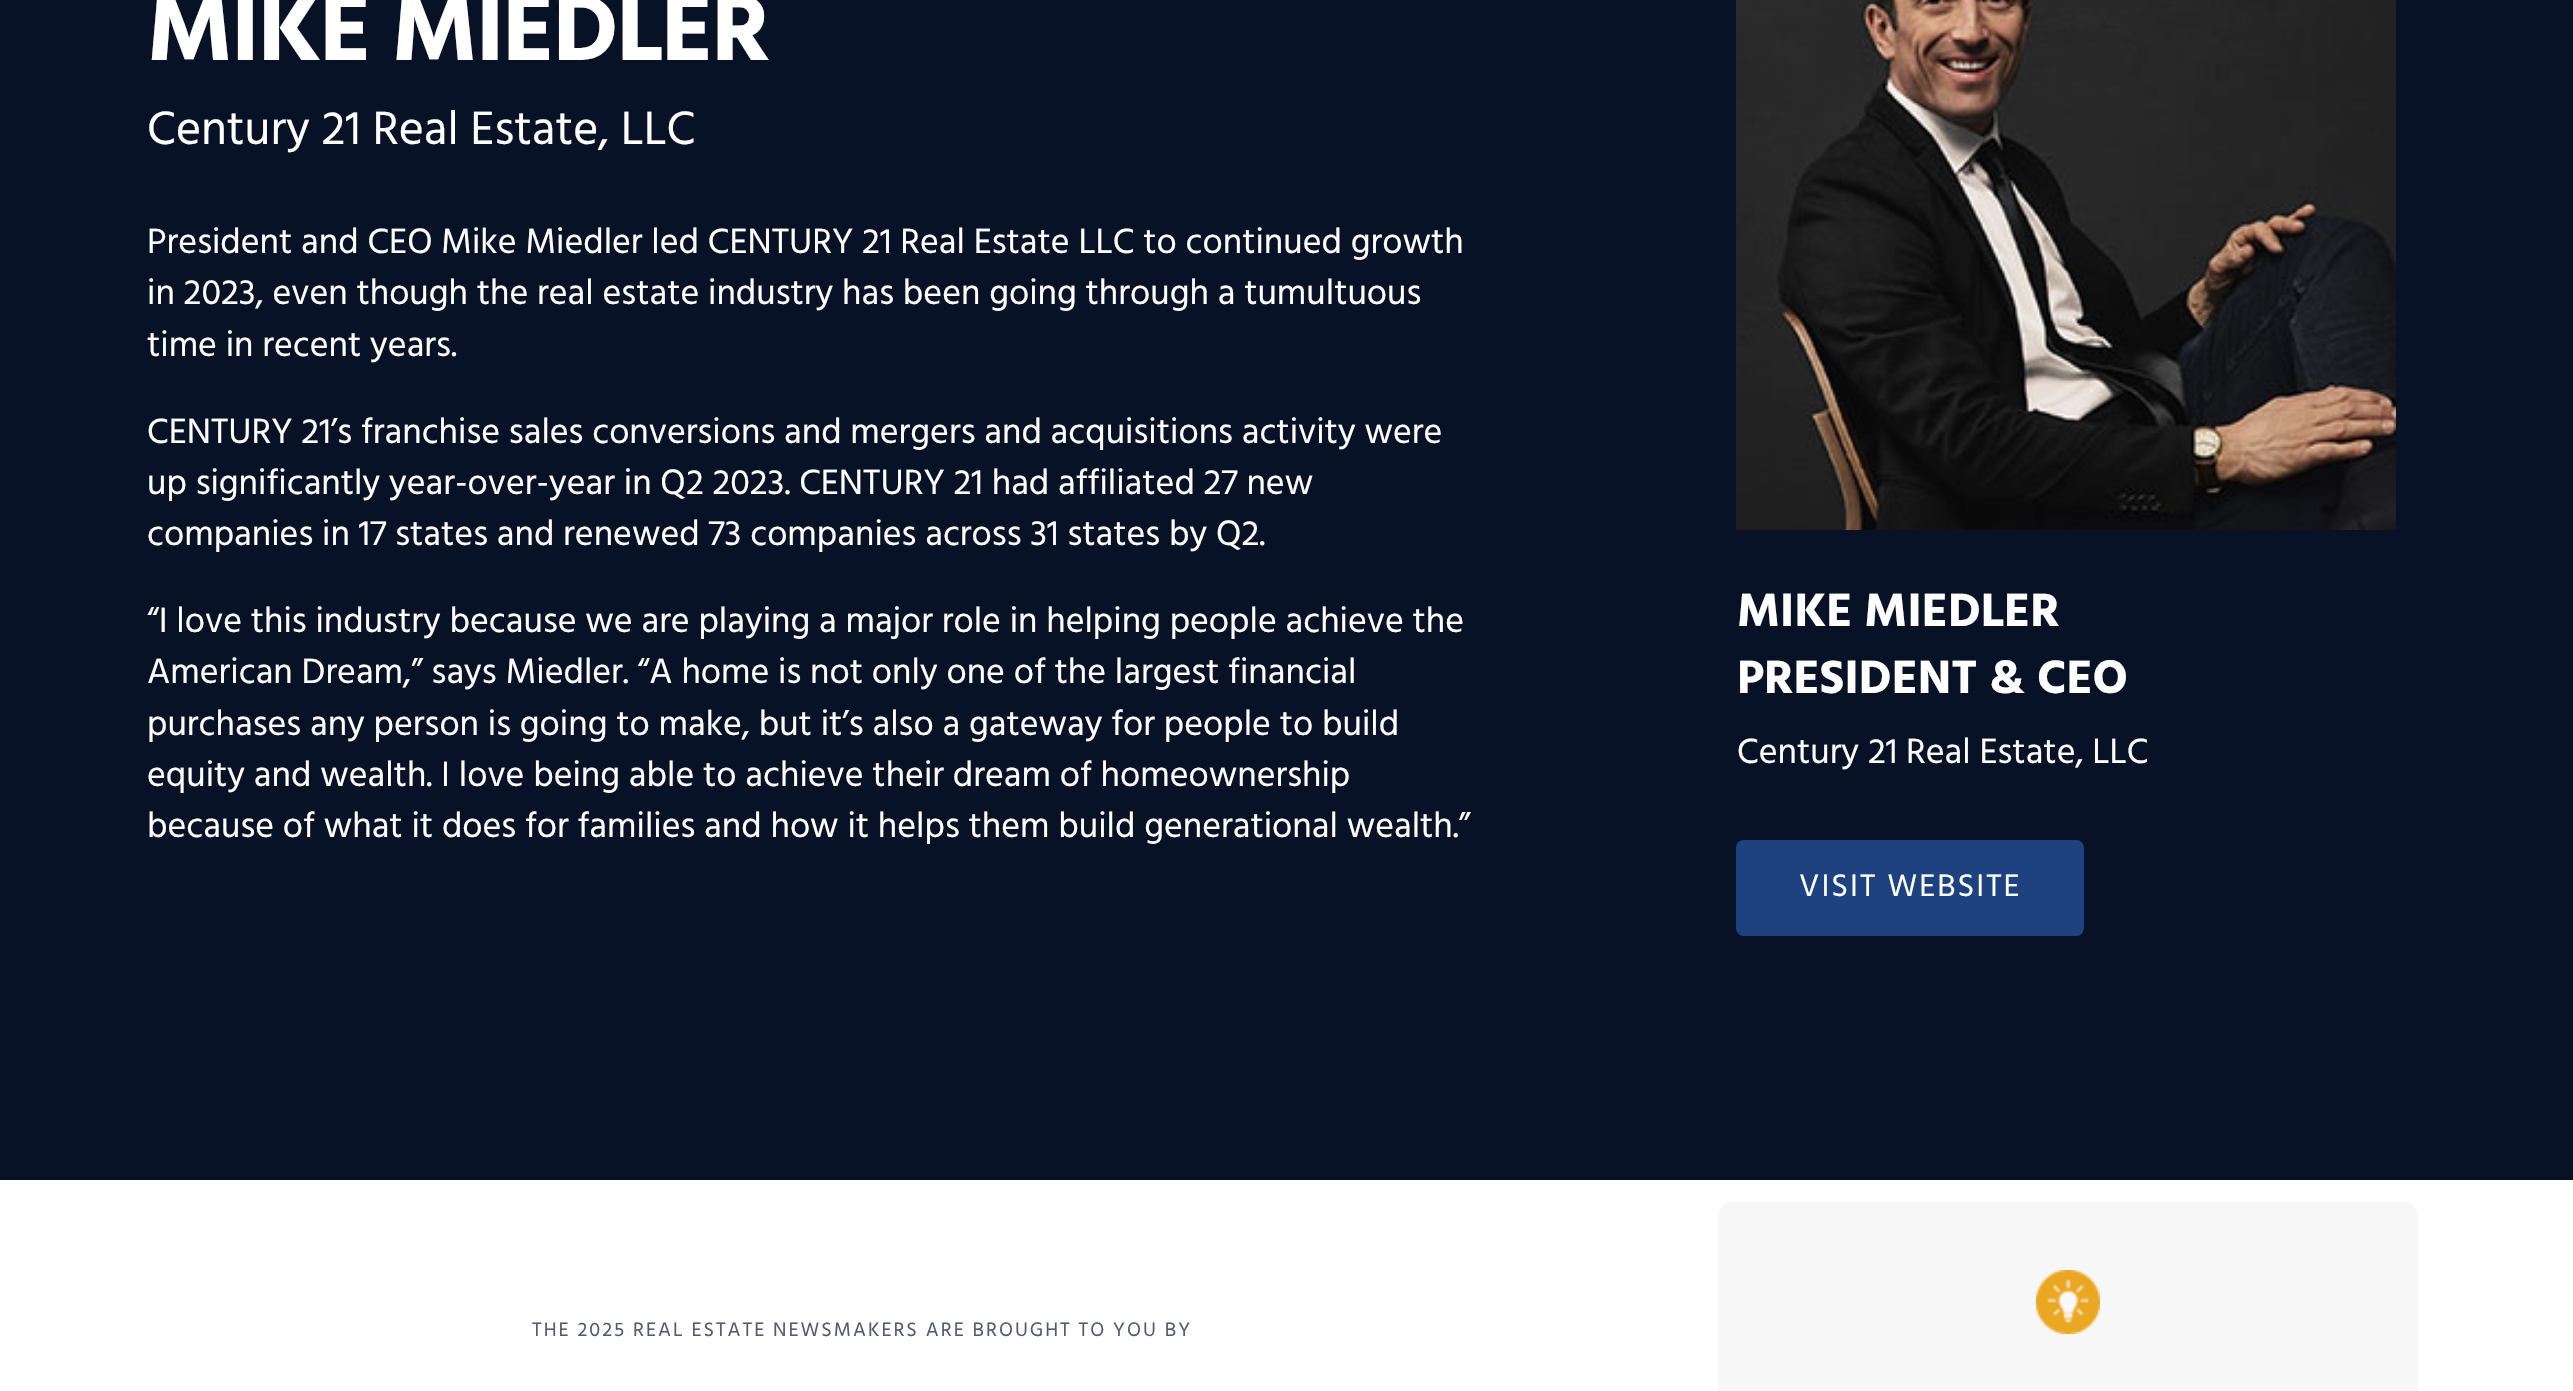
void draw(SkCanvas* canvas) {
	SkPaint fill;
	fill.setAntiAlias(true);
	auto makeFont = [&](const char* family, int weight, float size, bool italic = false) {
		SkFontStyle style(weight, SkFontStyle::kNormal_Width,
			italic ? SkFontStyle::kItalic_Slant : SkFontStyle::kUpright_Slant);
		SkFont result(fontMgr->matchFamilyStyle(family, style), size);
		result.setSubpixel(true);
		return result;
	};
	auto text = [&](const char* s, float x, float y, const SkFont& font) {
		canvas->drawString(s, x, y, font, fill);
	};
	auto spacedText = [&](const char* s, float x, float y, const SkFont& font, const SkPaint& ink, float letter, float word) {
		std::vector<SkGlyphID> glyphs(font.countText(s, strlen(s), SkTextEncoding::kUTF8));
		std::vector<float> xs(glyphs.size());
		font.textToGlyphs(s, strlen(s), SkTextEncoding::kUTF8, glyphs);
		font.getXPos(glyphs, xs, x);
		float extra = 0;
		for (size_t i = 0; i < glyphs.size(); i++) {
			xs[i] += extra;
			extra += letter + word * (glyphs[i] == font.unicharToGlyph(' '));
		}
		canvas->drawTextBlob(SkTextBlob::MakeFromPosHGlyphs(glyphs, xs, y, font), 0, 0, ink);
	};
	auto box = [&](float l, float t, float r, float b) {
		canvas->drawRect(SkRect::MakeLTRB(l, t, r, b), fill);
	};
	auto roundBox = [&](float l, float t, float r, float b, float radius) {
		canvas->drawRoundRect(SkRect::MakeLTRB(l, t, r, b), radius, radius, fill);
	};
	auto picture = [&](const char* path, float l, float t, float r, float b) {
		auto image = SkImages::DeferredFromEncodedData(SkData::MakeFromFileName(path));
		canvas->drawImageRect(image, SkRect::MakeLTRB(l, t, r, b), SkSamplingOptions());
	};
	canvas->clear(0xFFFFFFFF);
	fill.setColor(0xFF071227);
	box(0, 0, 2573, 1180);
	picture("image0.png", 1736, 0, 2396, 530);
	fill.setColor(0xFF1E4280);
	roundBox(1736, 840, 2084, 936, 8);
	fill.setColor(0xFFF7F7F7);
	roundBox(1718, 1202, 2418, 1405, 14);
	picture("image1.png", 2036, 1270, 2100, 1334);
	auto font1 = makeFont("Hind", 700, 96);
	fill.setColor(0xFFFFFFFF);
	spacedText("MIKE MIEDLER", 147, 60, font1, fill, -2, 0);
	auto font2 = makeFont("Hind", 400, 48);
	text("Century 21 Real Estate, LLC", 147, 144, font2);
	auto font3 = makeFont("Hind", 400, 36);
	text("President and CEO Mike Miedler led CENTURY 21 Real Estate LLC to continued growth", 147, 253, font3);
	text("in 2023, even though the real estate industry has been going through a tumultuous", 147, 304, font3);
	text("time in recent years.", 147, 356, font3);
	text("CENTURY 21’s franchise sales conversions and mergers and acquisitions activity were", 147, 443, font3);
	text("up significantly year-over-year in Q2 2023. CENTURY 21 had affiliated 27 new", 147, 494, font3);
	text("companies in 17 states and renewed 73 companies across 31 states by Q2.", 147, 545, font3);
	text("“I love this industry because we are playing a major role in helping people achieve the", 147, 632, font3);
	text("American Dream,” says Miedler. “A home is not only one of the largest financial", 147, 683, font3);
	text("purchases any person is going to make, but it’s also a gateway for people to build", 147, 735, font3);
	text("equity and wealth. I love being able to achieve their dream of homeownership", 147, 786, font3);
	text("because of what it does for families and how it helps them build generational wealth.”", 147, 837, font3);
	auto font4 = makeFont("Hind", 700, 48);
	text("MIKE MIEDLER", 1737, 626, font4);
	text("PRESIDENT & CEO", 1737, 693, font4);
	text("Century 21 Real Estate, LLC", 1737, 763, font3);
	auto font5 = makeFont("Hind", 400, 32);
	spacedText("VISIT WEBSITE", 1799, 896, font5, fill, 2, 0);
	auto font6 = makeFont("Hind", 400, 20);
	fill.setColor(0xFF555A70);
	spacedText("THE 2025 REAL ESTATE NEWSMAKERS ARE BROUGHT TO YOU BY", 532, 1336, font6, fill, 2, 0);
}
